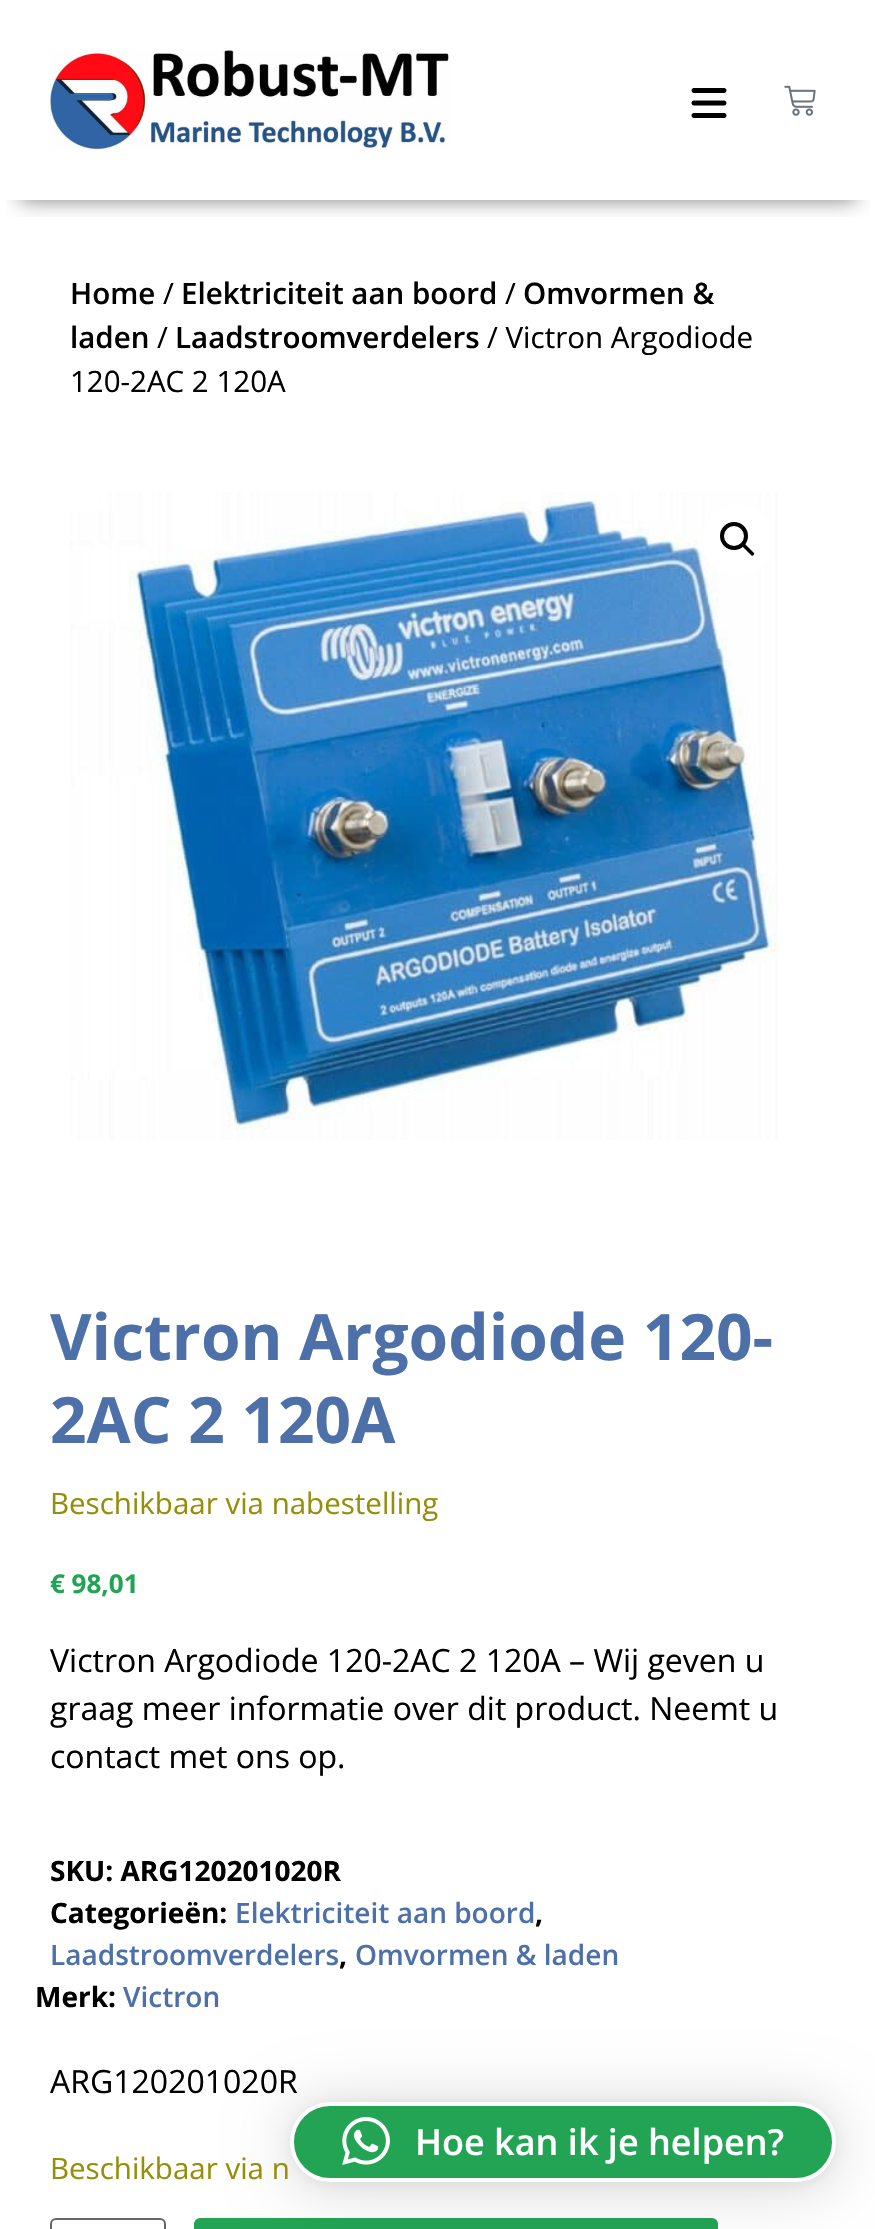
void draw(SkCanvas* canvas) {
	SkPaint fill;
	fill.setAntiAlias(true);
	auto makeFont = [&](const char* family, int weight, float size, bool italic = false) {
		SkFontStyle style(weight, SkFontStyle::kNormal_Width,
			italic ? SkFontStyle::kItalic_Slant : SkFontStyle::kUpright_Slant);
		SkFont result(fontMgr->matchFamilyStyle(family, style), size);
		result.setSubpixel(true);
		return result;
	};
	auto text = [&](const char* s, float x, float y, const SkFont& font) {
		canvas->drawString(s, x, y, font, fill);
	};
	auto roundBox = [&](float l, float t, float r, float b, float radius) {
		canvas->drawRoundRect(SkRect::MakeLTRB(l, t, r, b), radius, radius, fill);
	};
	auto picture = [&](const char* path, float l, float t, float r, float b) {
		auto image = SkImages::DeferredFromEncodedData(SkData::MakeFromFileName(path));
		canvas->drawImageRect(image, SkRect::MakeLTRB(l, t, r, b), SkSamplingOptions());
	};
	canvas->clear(0xFFFFFFFF);
	canvas->save();
	canvas->clipRect(SkRect::MakeLTRB(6, 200, 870, 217));
	fill.setColor(0x80000000);
	fill.setMaskFilter(SkMaskFilter::MakeBlur(kNormal_SkBlurStyle, 10));
	canvas->drawRect(SkRect::MakeLTRB(20, 40, 856, 200), fill);
	fill.setMaskFilter(nullptr);
	canvas->restore();
	picture("image0.png", 50, 50, 450, 150);
	picture("image1.png", 691, 88, 727, 118);
	picture("image2.png", 784, 85, 816, 116);
	picture("image3.png", 70, 492, 778, 1140);
	fill.setColor(0xFFFFFFFF);
	canvas->drawCircle(738, 540, 36, fill);
	fill.setStyle(SkPaint::kStroke_Style);
	fill.setStrokeWidth(4);
	fill.setColor(0xFF000000);
	canvas->drawCircle(734, 536, 12, fill);
	fill.setStyle(SkPaint::kFill_Style);
	canvas->drawPath(SkPathBuilder().moveTo(742.5f, 544).cubicTo(743, 543, 744.5f, 543, 745, 544).lineTo(753.5f, 552.5f).cubicTo(754.5f, 553, 754.5f, 554.5f, 753.5f, 555).cubicTo(753, 556, 751.5f, 556, 751, 555).lineTo(742.5f, 546.5f).cubicTo(741.5f, 546, 741.5f, 544.5f, 742.5f, 544).close().detach(), fill);
	fill.setStyle(SkPaint::kStroke_Style);
	fill.setStrokeWidth(2);
	fill.setColor(0xFF666666);
	canvas->drawRoundRect(SkRect::MakeLTRB(51, 2219, 165, 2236), 5, 5, fill);
	fill.setStyle(SkPaint::kFill_Style);
	fill.setColor(0xFF23A455);
	roundBox(194, 2218, 718, 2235, 6);
	fill.setColor(0x29000000);
	fill.setMaskFilter(SkMaskFilter::MakeBlur(kNormal_SkBlurStyle, 32));
	canvas->drawRoundRect(SkRect::MakeLTRB(290, 2106, 836, 2186), 40, 40, fill);
	fill.setMaskFilter(nullptr);
	fill.setColor(0x0F000000);
	fill.setMaskFilter(SkMaskFilter::MakeBlur(kNormal_SkBlurStyle, 6));
	canvas->drawRoundRect(SkRect::MakeLTRB(290, 2104, 836, 2184), 40, 40, fill);
	fill.setMaskFilter(nullptr);
	fill.setColor(0xFF23A455);
	canvas->drawRoundRect(SkRect::MakeLTRB(292, 2104, 834, 2180), 38, 38, fill);
	fill.setStyle(SkPaint::kStroke_Style);
	fill.setStrokeWidth(4);
	fill.setColor(0xFFFFFFFF);
	canvas->drawRoundRect(SkRect::MakeLTRB(292, 2104, 834, 2180), 38, 38, fill);
	picture("image4.png", 342, 2117, 390, 2165);
	auto font1 = makeFont("Open Sans", 600, 29.5f);
	fill.setStyle(SkPaint::kFill_Style);
	fill.setColor(0xFF000000);
	text("Home", 70, 304, font1);
	auto font2 = makeFont("Open Sans", 400, 29.5f);
	text("/", 163, 304, font2);
	text("Elektriciteit aan boord", 181, 304, font1);
	text("/", 505, 304, font2);
	text("Omvormen &", 523, 304, font1);
	text("laden", 70, 348, font1);
	text("/", 157, 348, font2);
	text("Laadstroomverdelers", 175, 348, font1);
	text("/ Victron Argodiode", 487, 348, font2);
	text("120-2AC 2 120A", 70, 392, font2);
	auto font3 = makeFont("Open Sans", 700, 64);
	fill.setColor(0xFF4D70A9);
	text("Victron Argodiode 120-", 50, 1360, font3);
	text("2AC 2 120A", 50, 1443, font3);
	fill.setColor(0xFF958E09);
	text("Beschikbaar via nabestelling", 50, 1514, font2);
	auto font4 = makeFont("Open Sans", 700, 26);
	fill.setColor(0xFF23A455);
	text("€ 98,01", 50, 1593, font4);
	auto font5 = makeFont("Open Sans", 400, 32);
	fill.setColor(0xFF000000);
	text("Victron Argodiode 120-2AC 2 120A – Wij geven u", 50, 1672, font5);
	text("graag meer informatie over dit product. Neemt u", 50, 1720, font5);
	text("contact met ons op.", 50, 1768, font5);
	auto font6 = makeFont("Open Sans", 700, 28);
	text("SKU: ARG120201020R", 50, 1881, font6);
	text("Categorieën:", 50, 1923, font6);
	auto font7 = makeFont("Open Sans", 600, 28);
	fill.setColor(0xFF4D70A9);
	text("Elektriciteit aan boord", 235, 1923, font7);
	fill.setColor(0xFF000000);
	text(",", 535, 1923, font6);
	fill.setColor(0xFF4D70A9);
	text("Laadstroomverdelers", 50, 1965, font7);
	fill.setColor(0xFF000000);
	text(",", 339, 1965, font6);
	fill.setColor(0xFF4D70A9);
	text("Omvormen & laden", 355, 1965, font7);
	fill.setColor(0xFF000000);
	text("Merk:", 35, 2007, font6);
	fill.setColor(0xFF4D70A9);
	text("Victron", 123, 2007, font7);
	fill.setColor(0xFF000000);
	text("ARG120201020R", 50, 2093, font5);
	fill.setColor(0xFF958E09);
	text("Beschikbaar via n", 50, 2179, font2);
	auto font8 = makeFont("Open Sans", 600, 36);
	fill.setColor(0xFFFFFFFF);
	text("Hoe kan ik je helpen?", 415, 2155, font8);
}
